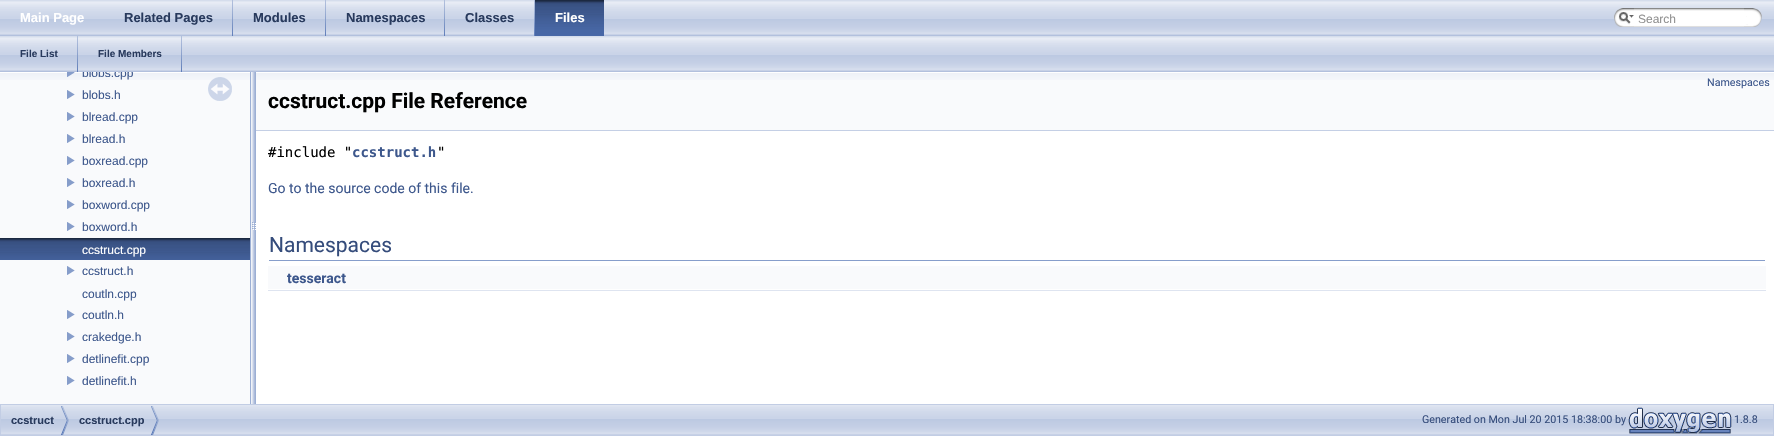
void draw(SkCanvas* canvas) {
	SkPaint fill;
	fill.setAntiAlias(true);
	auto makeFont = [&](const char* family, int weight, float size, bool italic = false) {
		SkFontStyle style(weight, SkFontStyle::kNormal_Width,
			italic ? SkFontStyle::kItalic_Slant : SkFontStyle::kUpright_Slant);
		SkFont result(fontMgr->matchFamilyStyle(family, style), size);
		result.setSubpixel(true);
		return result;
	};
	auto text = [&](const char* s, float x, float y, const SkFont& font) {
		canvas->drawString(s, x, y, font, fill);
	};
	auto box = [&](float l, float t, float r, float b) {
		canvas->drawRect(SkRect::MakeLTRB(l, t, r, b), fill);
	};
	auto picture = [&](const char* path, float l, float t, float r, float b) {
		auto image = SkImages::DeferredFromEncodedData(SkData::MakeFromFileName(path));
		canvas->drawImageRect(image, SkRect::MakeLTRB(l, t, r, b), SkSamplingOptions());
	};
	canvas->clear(0xFFFFFFFF);
	picture("image0.png", 0, 0, 1774, 36);
	picture("image1.png", 232, 0, 233, 36);
	picture("image1.png", 325, 0, 326, 36);
	picture("image1.png", 444, 0, 445, 36);
	picture("image1.png", 534, 0, 535, 36);
	picture("image2.png", 535, 0, 604, 36);
	picture("image3.png", 1614, 8, 1634, 27);
	picture("image4.png", 1619, 12, 1634, 24);
	picture("image5.png", 1634, 8, 1744, 27);
	picture("image6.png", 1744, 8, 1762, 27);
	picture("image0.png", 0, 36, 1774, 72);
	picture("image1.png", 77, 36, 78, 72);
	picture("image1.png", 181, 36, 182, 72);
	fill.setColor(0xFFF9FAFC);
	box(0, 80, 250, 404);
	picture("image7.png", 0, 72, 250, 80);
	picture("image8.png", 67, 72, 75, 77);
	picture("image9.png", 67, 90, 75, 99);
	picture("image9.png", 67, 112, 75, 121);
	picture("image9.png", 67, 134, 75, 143);
	picture("image9.png", 67, 156, 75, 165);
	picture("image9.png", 67, 178, 75, 187);
	picture("image9.png", 67, 200, 75, 209);
	picture("image9.png", 67, 222, 75, 231);
	picture("image10.png", 0, 238, 250, 260);
	picture("image9.png", 67, 266, 75, 275);
	picture("image9.png", 67, 310, 75, 319);
	picture("image9.png", 67, 332, 75, 341);
	picture("image9.png", 67, 354, 75, 363);
	picture("image9.png", 67, 376, 75, 385);
	picture("image11.png", 208, 77, 232, 101);
	picture("image12.png", 250, 72, 256, 404);
	box(256, 80, 1774, 130);
	picture("image13.png", 256, 72, 1774, 80);
	fill.setColor(0xFFC4CFE5);
	box(256, 130, 1774, 131);
	fill.setColor(0xFF879ECB);
	box(269, 260, 1765, 261);
	fill.setColor(0xFFF9FAFC);
	box(268, 266, 1766, 289);
	fill.setColor(0xFFDEE4F0);
	box(268, 290, 1766, 291);
	picture("image14.png", 1, 405, 1773, 435);
	fill.setStyle(SkPaint::kStroke_Style);
	fill.setStrokeWidth(1);
	fill.setColor(0xFFC2CDE4);
	canvas->drawRect(SkRect::MakeLTRB(0.5f, 404.5f, 1773.5f, 435.5f), fill);
	picture("image15.png", 61, 406, 69, 435);
	picture("image15.png", 151, 406, 159, 435);
	picture("image16.png", 1628, 407, 1732, 434);
	auto font1 = makeFont("Liberation Sans", 700, 13);
	fill.setStyle(SkPaint::kFill_Style);
	fill.setColor(0xFFFFFFFF);
	text("Main Page", 20, 22, font1);
	fill.setColor(0xFF283A5D);
	text("Related Pages", 124, 22, font1);
	text("Modules", 253, 22, font1);
	text("Namespaces", 346, 22, font1);
	text("Classes", 465, 22, font1);
	fill.setColor(0xFFFFFFFF);
	text("Files", 555, 22, font1);
	auto font2 = makeFont("Liberation Sans", 400, 12);
	fill.setColor(0xFF909090);
	text("Search", 1638, 23, font2);
	auto font3 = makeFont("Liberation Sans", 700, 10);
	fill.setColor(0xFF283A5D);
	text("File List", 20, 57, font3);
	text("File Members", 98, 57, font3);
	canvas->save();
	canvas->clipRect(SkRect::MakeLTRB(0, 72, 250, 404));
	fill.setColor(0xFF3D578C);
	text("blobs.cpp", 82, 77, font2);
	canvas->restore();
	text("blobs.h", 82, 99, font2);
	text("blread.cpp", 82, 121, font2);
	text("blread.h", 82, 143, font2);
	text("boxread.cpp", 82, 165, font2);
	text("boxread.h", 82, 187, font2);
	text("boxword.cpp", 82, 209, font2);
	text("boxword.h", 82, 231, font2);
	fill.setColor(0xFFFFFFFF);
	text("ccstruct.cpp", 82, 254, font2);
	fill.setColor(0xFF3D578C);
	text("ccstruct.h", 82, 275, font2);
	text("coutln.cpp", 82, 298, font2);
	text("coutln.h", 82, 319, font2);
	text("crakedge.h", 82, 341, font2);
	text("detlinefit.cpp", 82, 363, font2);
	text("detlinefit.h", 82, 385, font2);
	auto font4 = makeFont("Roboto", 400, 10.7f);
	text("Namespaces", 1707, 86, font4);
	auto font5 = makeFont("Roboto", 700, 21);
	fill.setColor(0xFF000000);
	text("ccstruct.cpp File Reference", 268, 108, font5);
	auto font6 = makeFont("DejaVu Sans Mono", 400, 14);
	text("#include \"", 268, 157, font6);
	auto font7 = makeFont("DejaVu Sans Mono", 700, 14);
	fill.setColor(0xFF3D578C);
	text("ccstruct.h", 352, 157, font7);
	fill.setColor(0xFF000000);
	text("\"", 437, 157, font6);
	auto font8 = makeFont("Roboto", 400, 14);
	fill.setColor(0xFF3D578C);
	text("Go to the source code of this file.", 268, 193, font8);
	auto font9 = makeFont("Roboto", 400, 21);
	fill.setColor(0xFF354C7B);
	text("Namespaces", 269, 252, font9);
	auto font10 = makeFont("Roboto", 700, 14);
	fill.setColor(0xFF3D578C);
	text("tesseract", 287, 283, font10);
	auto font11 = makeFont("Liberation Sans", 700, 11);
	fill.setColor(0xFF283A5D);
	text("ccstruct", 11, 424, font11);
	text("ccstruct.cpp", 79, 424, font11);
	fill.setColor(0xFF354C7B);
	text("Generated on Mon Jul 20 2015 18:38:00 by", 1422, 423, font4);
	text("1.8.8", 1734, 423, font4);
}
